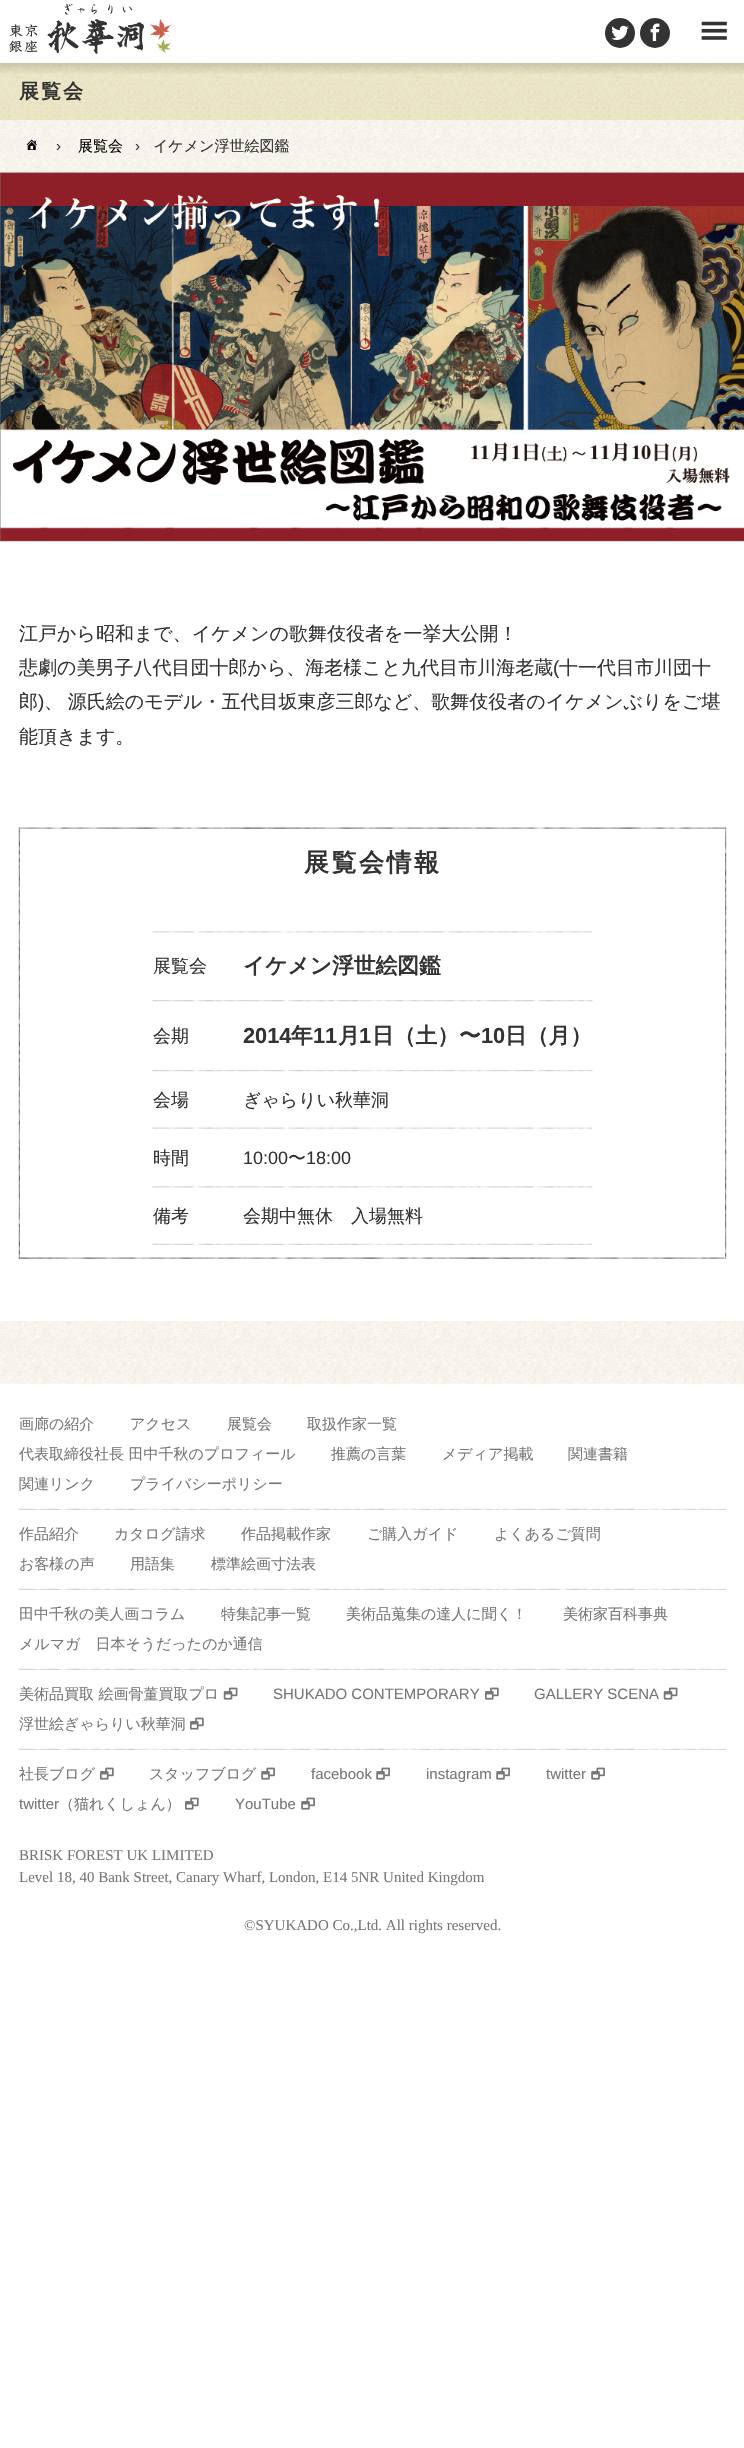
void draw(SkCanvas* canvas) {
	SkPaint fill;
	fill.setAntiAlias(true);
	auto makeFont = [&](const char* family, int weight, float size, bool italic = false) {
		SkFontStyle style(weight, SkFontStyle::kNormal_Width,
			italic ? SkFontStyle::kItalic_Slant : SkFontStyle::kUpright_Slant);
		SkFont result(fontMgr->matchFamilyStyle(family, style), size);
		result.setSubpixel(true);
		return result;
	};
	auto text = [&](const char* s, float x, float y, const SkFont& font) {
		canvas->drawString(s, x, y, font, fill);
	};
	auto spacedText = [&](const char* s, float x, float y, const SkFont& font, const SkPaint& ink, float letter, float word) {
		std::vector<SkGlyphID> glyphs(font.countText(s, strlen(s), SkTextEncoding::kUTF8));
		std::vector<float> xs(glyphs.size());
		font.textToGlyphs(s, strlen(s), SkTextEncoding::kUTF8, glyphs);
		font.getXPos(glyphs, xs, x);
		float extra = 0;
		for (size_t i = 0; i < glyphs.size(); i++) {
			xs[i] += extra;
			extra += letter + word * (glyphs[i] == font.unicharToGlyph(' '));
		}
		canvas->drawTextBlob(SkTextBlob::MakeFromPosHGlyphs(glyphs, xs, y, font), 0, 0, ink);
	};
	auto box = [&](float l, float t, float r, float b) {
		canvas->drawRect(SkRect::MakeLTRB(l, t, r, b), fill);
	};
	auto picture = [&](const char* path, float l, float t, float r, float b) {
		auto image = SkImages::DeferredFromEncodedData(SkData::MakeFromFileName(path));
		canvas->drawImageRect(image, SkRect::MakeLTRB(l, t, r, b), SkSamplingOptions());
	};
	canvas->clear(0xFFFFFFFF);
	picture("image4.png", 0, 62, 744, 1384);
	picture("image5.png", 0, 62, 744, 120);
	fill.setColor(0xE6FFFFFF);
	box(0, 62, 744, 63);
	picture("image0.png", 9, 3, 171, 54);
	fill.setColor(0xFF333333);
	canvas->drawCircle(620, 33, 15, fill);
	picture("image1.png", 611, 25, 629, 40);
	canvas->drawCircle(655, 33, 15, fill);
	picture("image2.png", 650, 23, 660, 42);
	picture("image3.png", 701, 21, 727, 40);
	picture("image6.png", 26, 139, 37, 150);
	fill.setColor(0xFFFFFFFF);
	box(0, 541, 744, 1321);
	picture("image7.png", 0, 172, 744, 542);
	picture("image8.png", 18, 827, 20, 1259);
	picture("image9.png", 18, 827, 727, 829);
	picture("image21.png", 18, 1257, 727, 1259);
	picture("image10.png", 725, 828, 727, 1258);
	picture("image11.png", 152, 931, 593, 933);
	picture("image12.png", 152, 1000, 243, 1002);
	picture("image13.png", 242, 1000, 593, 1002);
	picture("image12.png", 152, 1070, 243, 1072);
	picture("image14.png", 242, 1070, 593, 1072);
	picture("image15.png", 152, 1127, 243, 1129);
	picture("image16.png", 242, 1127, 593, 1129);
	picture("image17.png", 152, 1186, 243, 1188);
	picture("image18.png", 242, 1186, 593, 1188);
	picture("image19.png", 152, 1243, 243, 1245);
	picture("image20.png", 242, 1243, 593, 1245);
	picture("image22.png", 19, 1508, 726, 1510);
	picture("image23.png", 19, 1588, 726, 1590);
	picture("image24.png", 19, 1668, 726, 1670);
	picture("image25.png", 223, 1687, 238, 1700);
	picture("image26.png", 485, 1687, 499, 1700);
	picture("image25.png", 663, 1687, 678, 1700);
	picture("image26.png", 190, 1717, 204, 1730);
	picture("image27.png", 19, 1748, 726, 1750);
	picture("image26.png", 100, 1767, 114, 1780);
	picture("image28.png", 261, 1767, 275, 1780);
	picture("image28.png", 376, 1767, 390, 1780);
	picture("image28.png", 496, 1767, 510, 1780);
	picture("image28.png", 591, 1767, 605, 1780);
	picture("image26.png", 185, 1797, 199, 1810);
	picture("image28.png", 301, 1797, 315, 1810);
	auto font1 = makeFont("WenQuanYi Zen Hei", 700, 20);
	fill.setColor(0xFF333333);
	spacedText("展覧会", 19, 98, font1, fill, 2, 0);
	auto font2 = makeFont("Liberation Sans", 400, 15);
	text("›", 56, 151, font2);
	auto font3 = makeFont("WenQuanYi Zen Hei", 500, 15);
	fill.setColor(0xFF000000);
	text("展覧会", 78, 151, font3);
	fill.setColor(0xFF333333);
	text("›", 135, 151, font2);
	text("イケメン浮世絵図鑑", 153, 151, font3);
	auto font4 = makeFont("WenQuanYi Zen Hei", 500, 19);
	text("江戸から昭和まで、イケメンの歌舞伎役者を一挙大公開！", 19, 640, font4);
	text("悲劇の美男子八代目団十郎から、海老様こと九代目市川海老蔵", 19, 674, font4);
	auto font5 = makeFont("Liberation Sans", 400, 19);
	text("(", 553, 674, font5);
	text("十一代目市川団十", 559, 674, font4);
	text("郎", 19, 708, font4);
	text(")", 38, 708, font5);
	spacedText("、 源氏絵のモデル・五代目坂東彦三郎など、歌舞伎役者のイケメンぶりをご堪", 44, 708, font4, fill, 0, -1);
	text("能頂きます。", 19, 743, font4);
	auto font6 = makeFont("WenQuanYi Zen Hei", 700, 25);
	spacedText("展覧会情報", 304, 871, font6, fill, 2.5f, 0);
	auto font7 = makeFont("WenQuanYi Zen Hei", 500, 18);
	text("展覧会", 153, 972, font7);
	auto font8 = makeFont("WenQuanYi Zen Hei", 700, 21.75f);
	text("イケメン浮世絵図鑑", 243, 973, font8);
	text("会期", 153, 1042, font7);
	auto font9 = makeFont("Liberation Sans", 700, 21.75f);
	text("2014", 243, 1043, font9);
	text("年", 291, 1043, font8);
	text("11", 313, 1043, font9);
	text("月", 338, 1043, font8);
	text("1", 359, 1043, font9);
	text("日（土）〜", 372, 1043, font8);
	text("10", 481, 1043, font9);
	text("日（月）", 505, 1043, font8);
	text("会場", 153, 1106, font7);
	text("ぎゃらりい秋華洞", 243, 1106, font7);
	text("時間", 153, 1164, font7);
	auto font10 = makeFont("Liberation Sans", 400, 18);
	text("10:00", 243, 1164, font10);
	text("〜", 288, 1164, font7);
	text("18:00", 306, 1164, font10);
	text("備考", 153, 1222, font7);
	text("会期中無休　入場無料", 243, 1222, font7);
	fill.setColor(0xFF777777);
	text("画廊の紹介", 19, 1429, font3);
	text("アクセス", 130, 1429, font3);
	text("展覧会", 227, 1429, font3);
	text("取扱作家一覧", 307, 1429, font3);
	text("代表取締役社長 田中千秋のプロフィール", 19, 1459, font3);
	text("推薦の言葉", 331, 1459, font3);
	text("メディア掲載", 442, 1459, font3);
	text("関連書籍", 568, 1459, font3);
	text("関連リンク", 19, 1489, font3);
	text("プライバシーポリシー", 130, 1489, font3);
	text("作品紹介", 19, 1539, font3);
	text("カタログ請求", 114, 1539, font3);
	text("作品掲載作家", 241, 1539, font3);
	text("ご購入ガイド", 367, 1539, font3);
	text("よくあるご質問", 494, 1539, font3);
	text("お客様の声", 19, 1569, font3);
	text("用語集", 130, 1569, font3);
	text("標準絵画寸法表", 211, 1569, font3);
	text("田中千秋の美人画コラム", 19, 1619, font3);
	text("特集記事一覧", 221, 1619, font3);
	text("美術品蒐集の達人に聞く！", 346, 1619, font3);
	text("美術家百科事典", 563, 1619, font3);
	text("メルマガ　日本そうだったのか通信", 19, 1649, font3);
	text("美術品買取 絵画骨董買取プロ", 19, 1699, font3);
	text("SHUKADO CONTEMPORARY", 273, 1699, font2);
	text("GALLERY SCENA", 534, 1699, font2);
	text("浮世絵ぎゃらりい秋華洞", 19, 1729, font3);
	text("社長ブログ", 19, 1779, font3);
	text("スタッフブログ", 149, 1779, font3);
	text("facebook", 311, 1779, font2);
	text("instagram", 426, 1779, font2);
	text("twitter", 546, 1779, font2);
	text("twitter", 19, 1809, font2);
	text("（猫れくしょん）", 59, 1809, font3);
	text("YouTube", 235, 1809, font2);
	auto font11 = makeFont("Liberation Serif", 400, 15);
	text("BRISK FOREST UK LIMITED", 19, 1860, font11);
	text("Level 18, 40 Bank Street, Canary Wharf, London, E14 5NR United Kingdom", 19, 1882, font11);
	text("©SYUKADO Co.,Ltd. All rights reserved.", 244, 1930, font11);
}
